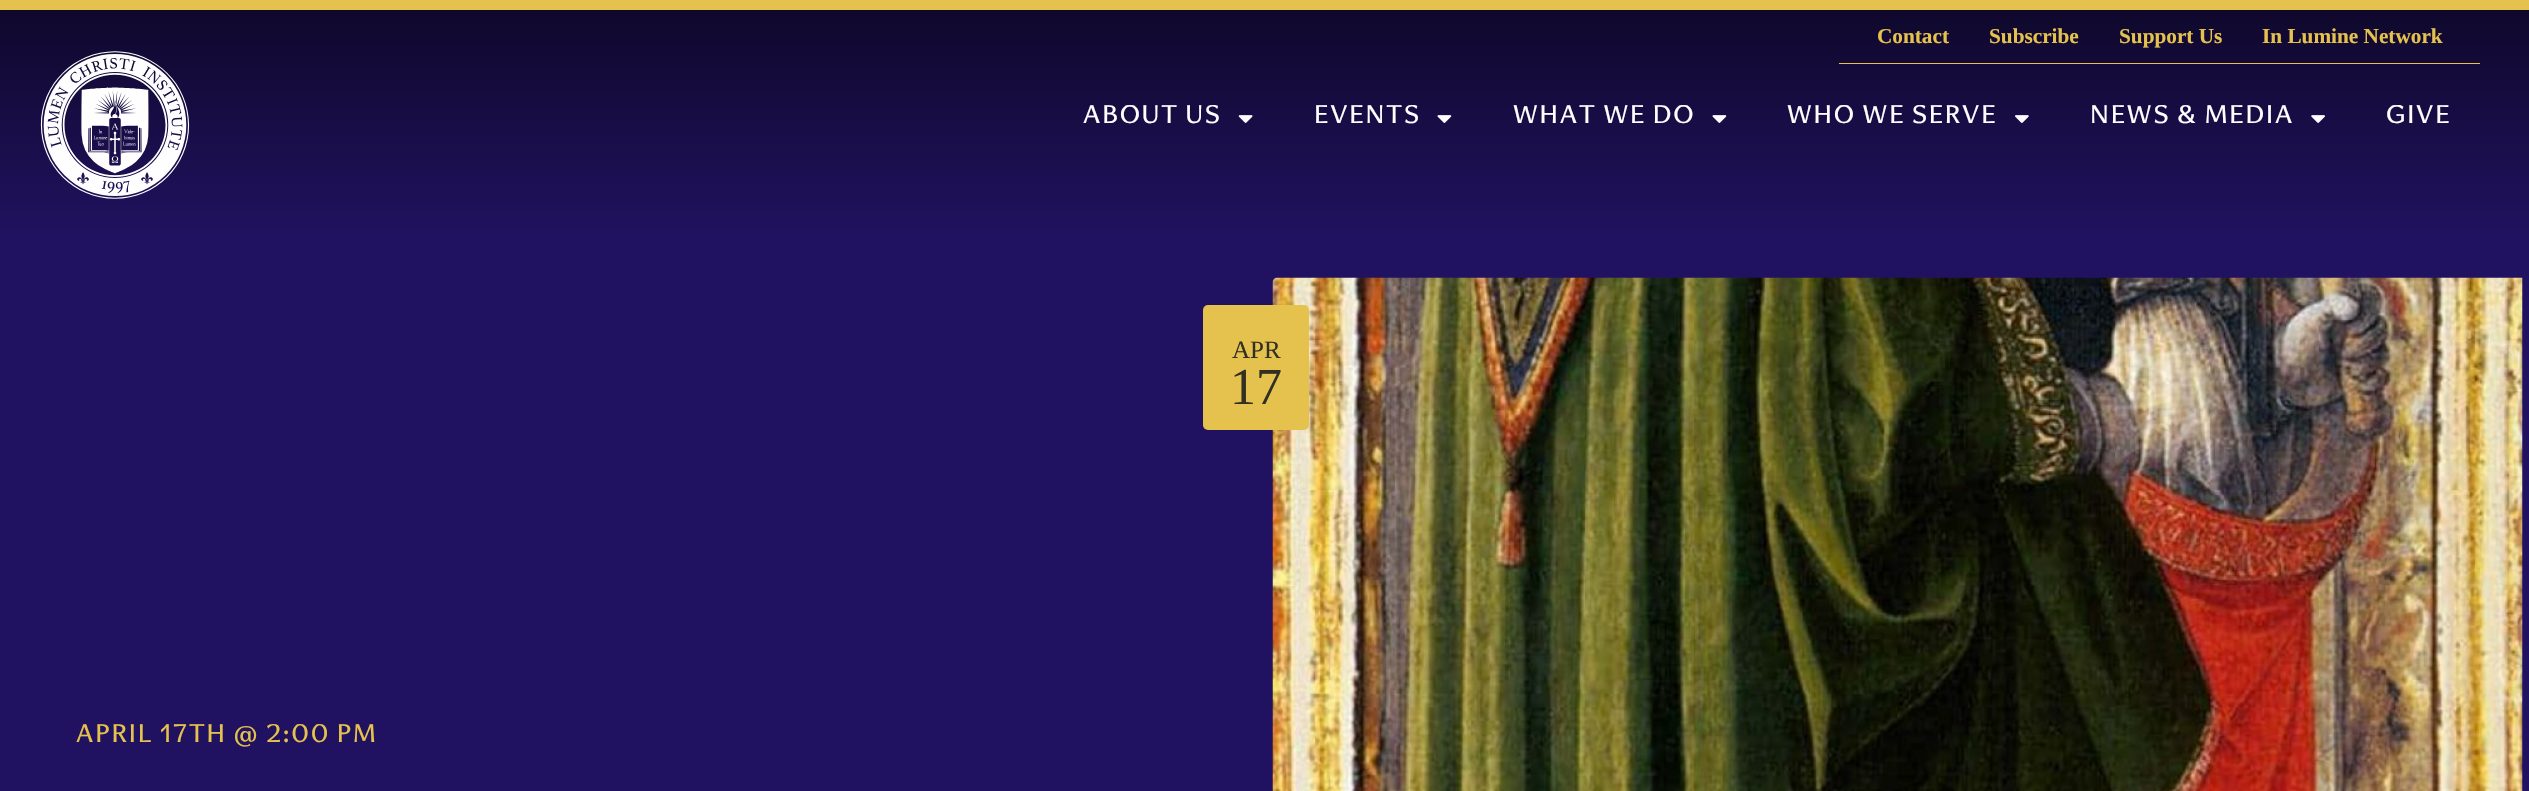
void draw(SkCanvas* canvas) {
	SkPaint fill;
	fill.setAntiAlias(true);
	auto makeFont = [&](const char* family, int weight, float size, bool italic = false) {
		SkFontStyle style(weight, SkFontStyle::kNormal_Width,
			italic ? SkFontStyle::kItalic_Slant : SkFontStyle::kUpright_Slant);
		SkFont result(fontMgr->matchFamilyStyle(family, style), size);
		result.setSubpixel(true);
		return result;
	};
	auto text = [&](const char* s, float x, float y, const SkFont& font) {
		canvas->drawString(s, x, y, font, fill);
	};
	auto spacedText = [&](const char* s, float x, float y, const SkFont& font, const SkPaint& ink, float letter, float word) {
		std::vector<SkGlyphID> glyphs(font.countText(s, strlen(s), SkTextEncoding::kUTF8));
		std::vector<float> xs(glyphs.size());
		font.textToGlyphs(s, strlen(s), SkTextEncoding::kUTF8, glyphs);
		font.getXPos(glyphs, xs, x);
		float extra = 0;
		for (size_t i = 0; i < glyphs.size(); i++) {
			xs[i] += extra;
			extra += letter + word * (glyphs[i] == font.unicharToGlyph(' '));
		}
		canvas->drawTextBlob(SkTextBlob::MakeFromPosHGlyphs(glyphs, xs, y, font), 0, 0, ink);
	};
	auto box = [&](float l, float t, float r, float b) {
		canvas->drawRect(SkRect::MakeLTRB(l, t, r, b), fill);
	};
	auto roundBox = [&](float l, float t, float r, float b, float radius) {
		canvas->drawRoundRect(SkRect::MakeLTRB(l, t, r, b), radius, radius, fill);
	};
	auto picture = [&](const char* path, float l, float t, float r, float b) {
		auto image = SkImages::DeferredFromEncodedData(SkData::MakeFromFileName(path));
		canvas->drawImageRect(image, SkRect::MakeLTRB(l, t, r, b), SkSamplingOptions());
	};
	canvas->clear(0xFF211261);
	{
		const SkColor colors[] = {0xFF0F082C, 0xFF211260};
		const float stops[] = {0, 1};
		const SkPoint ends[] = {{1265, 10}, {1265, 240}};
		fill.setShader(SkGradientShader::MakeLinear(ends, colors, stops, 2, SkTileMode::kClamp));
		fill.setAlpha(255);
	}
	box(0, 10, 2529, 233);
	fill.setShader(nullptr);
	fill.setColor(0xFFE5C24E);
	box(0, 0, 2529, 10);
	picture("image0.png", 40, 51, 190, 199);
	box(1839, 63, 2480, 64);
	picture("image1.png", 1238, 115, 1253, 123);
	picture("image2.png", 1437, 115, 1452, 123);
	picture("image2.png", 1712, 115, 1727, 123);
	picture("image3.png", 2015, 115, 2029, 123);
	picture("image4.png", 2311, 115, 2325, 123);
	picture("image5.png", 1272, 277, 2523, 791);
	roundBox(1203, 305, 1309, 430, 5);
	auto font1 = makeFont("Liberation Serif", 700, 21.25f);
	text("Contact", 1877, 43, font1);
	text("Subscribe", 1989, 43, font1);
	text("Support Us", 2119, 43, font1);
	text("In Lumine Network", 2262, 43, font1);
	auto font2 = makeFont("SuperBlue", 400, 23.75f);
	fill.setColor(0xFFFFFFFF);
	spacedText("ABOUT US", 1083, 123, font2, fill, 1.9f, 0);
	spacedText("EVENTS", 1314, 123, font2, fill, 1.9f, 0);
	spacedText("WHAT WE DO", 1513, 123, font2, fill, 1.9f, 0);
	spacedText("WHO WE SERVE", 1787, 123, font2, fill, 1.9f, 0);
	spacedText("NEWS & MEDIA", 2090, 123, font2, fill, 1.9f, 0);
	spacedText("GIVE", 2386, 123, font2, fill, 1.9f, 0);
	auto font3 = makeFont("Liberation Serif", 400, 25);
	fill.setColor(0xFF322F23);
	text("APR", 1232, 358, font3);
	auto font4 = makeFont("Liberation Serif", 400, 52);
	text("17", 1230, 404, font4);
	fill.setColor(0xFFE5C24E);
	spacedText("APRIL 17TH @ 2:00 PM", 76, 742, font2, fill, 1.9f, 0);
}
